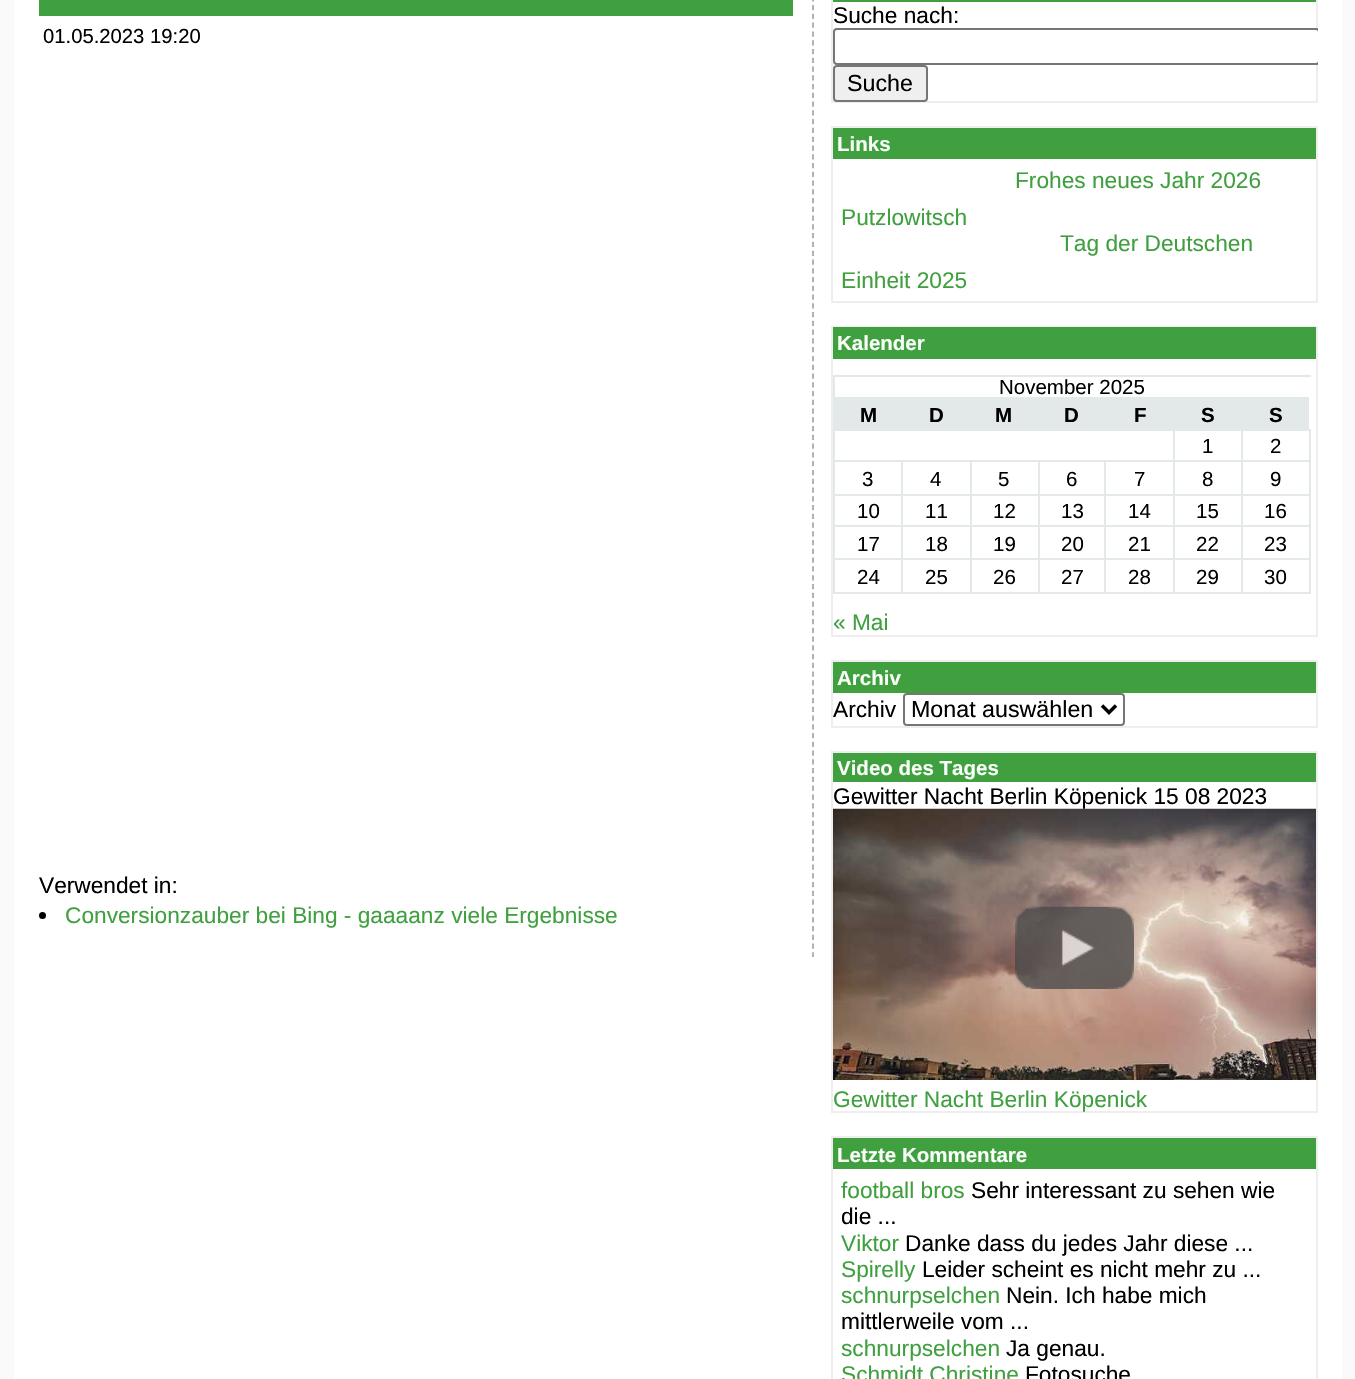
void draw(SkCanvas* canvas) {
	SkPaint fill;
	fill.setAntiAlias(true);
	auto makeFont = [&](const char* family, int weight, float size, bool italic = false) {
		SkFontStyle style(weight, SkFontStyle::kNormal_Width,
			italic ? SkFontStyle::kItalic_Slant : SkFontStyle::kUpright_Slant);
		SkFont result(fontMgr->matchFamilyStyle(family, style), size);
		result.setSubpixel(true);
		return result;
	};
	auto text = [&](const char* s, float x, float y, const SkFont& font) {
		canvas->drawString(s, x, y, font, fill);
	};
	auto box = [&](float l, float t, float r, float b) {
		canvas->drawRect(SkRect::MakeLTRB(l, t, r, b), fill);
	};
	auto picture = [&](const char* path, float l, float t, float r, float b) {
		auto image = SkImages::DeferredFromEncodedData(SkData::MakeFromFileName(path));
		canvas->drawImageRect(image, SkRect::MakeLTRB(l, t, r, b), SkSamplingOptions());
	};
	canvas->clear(0xFFFAFAFA);
	fill.setColor(0xFFFFFFFF);
	box(14, 0, 1342, 1379);
	fill.setStyle(SkPaint::kStroke_Style);
	fill.setStrokeWidth(1.8f);
	fill.setColor(0xFFAAAAAA);
	fill.setPathEffect(SkDashPathEffect::Make({{5.25f, 3.52f}}, 0));
	canvas->drawPath(SkPathBuilder().moveTo(813, -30).lineTo(813, 957).detach(), fill);
	fill.setPathEffect(nullptr);
	fill.setStyle(SkPaint::kFill_Style);
	fill.setColor(0xFF40A040);
	box(39, 0, 793, 16);
	fill.setColor(0xFF000000);
	canvas->drawCircle(42.5f, 915.5f, 3.5f, fill);
	fill.setStyle(SkPaint::kStroke_Style);
	fill.setStrokeWidth(2);
	fill.setColor(0xFFEEEEEE);
	canvas->drawRect(SkRect::MakeLTRB(832, -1, 1317, 102), fill);
	fill.setStyle(SkPaint::kFill_Style);
	fill.setColor(0xFF40A040);
	box(833, 0, 1316, 2);
	canvas->save();
	canvas->clipRect(SkRect::MakeLTRB(831, 0, 1318, 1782));
	fill.setColor(0xFFFFFFFF);
	canvas->drawRoundRect(SkRect::MakeLTRB(834, 29, 1319, 64), 3, 3, fill);
	fill.setStyle(SkPaint::kStroke_Style);
	fill.setColor(0xFF767676);
	canvas->drawRoundRect(SkRect::MakeLTRB(834, 29, 1319, 64), 3, 3, fill);
	canvas->restore();
	fill.setStyle(SkPaint::kFill_Style);
	fill.setColor(0xFFEFEFEF);
	canvas->drawRoundRect(SkRect::MakeLTRB(834, 66, 927, 101), 3, 3, fill);
	fill.setStyle(SkPaint::kStroke_Style);
	fill.setColor(0xFF767676);
	canvas->drawRoundRect(SkRect::MakeLTRB(834, 66, 927, 101), 3, 3, fill);
	fill.setColor(0xFFEEEEEE);
	canvas->drawRect(SkRect::MakeLTRB(832, 127, 1317, 302), fill);
	fill.setStyle(SkPaint::kFill_Style);
	fill.setColor(0xFF40A040);
	box(833, 128, 1316, 159);
	fill.setStyle(SkPaint::kStroke_Style);
	fill.setColor(0xFFEEEEEE);
	canvas->drawRect(SkRect::MakeLTRB(832, 327, 1317, 636), fill);
	fill.setStyle(SkPaint::kFill_Style);
	fill.setColor(0xFF40A040);
	box(833, 327, 1316, 359);
	fill.setColor(0xFFE3E8E8);
	box(833, 375, 1311, 377);
	box(833, 375, 835, 593);
	box(835, 397, 1309, 431);
	box(1309, 429, 1311, 593);
	box(1241, 592, 1311, 594);
	box(1241, 558, 1243, 593);
	box(1241, 558, 1311, 560);
	box(1241, 525, 1243, 560);
	box(1241, 525, 1311, 527);
	box(1241, 494, 1243, 527);
	box(1241, 494, 1311, 496);
	box(1241, 460, 1243, 495);
	box(1241, 460, 1311, 462);
	box(1241, 429, 1243, 462);
	box(1173, 592, 1243, 594);
	box(1173, 558, 1175, 593);
	box(1173, 558, 1243, 560);
	box(1173, 525, 1175, 560);
	box(1173, 525, 1243, 527);
	box(1173, 494, 1175, 527);
	box(1173, 494, 1243, 496);
	box(1173, 460, 1175, 495);
	box(1173, 460, 1243, 462);
	box(1173, 429, 1175, 462);
	box(1104, 592, 1174, 594);
	box(1104, 558, 1106, 593);
	box(1104, 558, 1174, 560);
	box(1104, 525, 1106, 560);
	box(1104, 525, 1174, 527);
	box(1104, 494, 1106, 527);
	box(1104, 494, 1174, 496);
	box(1104, 460, 1106, 495);
	box(1038, 592, 1106, 594);
	box(1038, 558, 1040, 593);
	box(1038, 558, 1106, 560);
	box(1038, 525, 1040, 560);
	box(1038, 525, 1106, 527);
	box(1038, 494, 1040, 527);
	box(1038, 494, 1106, 496);
	box(1038, 460, 1040, 495);
	box(970, 592, 1040, 594);
	box(970, 558, 972, 593);
	box(970, 558, 1040, 560);
	box(970, 525, 972, 560);
	box(970, 525, 1040, 527);
	box(970, 494, 972, 527);
	box(970, 494, 1040, 496);
	box(970, 460, 972, 495);
	box(901, 592, 971, 594);
	box(901, 558, 903, 593);
	box(901, 558, 971, 560);
	box(901, 525, 903, 560);
	box(901, 525, 971, 527);
	box(901, 494, 903, 527);
	box(901, 494, 971, 496);
	box(901, 460, 903, 495);
	box(833, 460, 1174, 462);
	box(833, 494, 903, 496);
	box(833, 525, 903, 527);
	box(833, 558, 903, 560);
	box(833, 592, 903, 594);
	fill.setStyle(SkPaint::kStroke_Style);
	fill.setColor(0xFFEEEEEE);
	canvas->drawRect(SkRect::MakeLTRB(832, 661, 1317, 727), fill);
	fill.setStyle(SkPaint::kFill_Style);
	fill.setColor(0xFF40A040);
	box(833, 662, 1316, 693);
	fill.setStyle(SkPaint::kStroke_Style);
	fill.setColor(0xFF767676);
	canvas->drawRoundRect(SkRect::MakeLTRB(904, 694, 1124, 725), 3, 3, fill);
	fill.setStrokeWidth(3.5f);
	fill.setColor(0xFF000000);
	canvas->drawPath(SkPathBuilder().moveTo(1102, 705.5f).lineTo(1109, 712.5f).lineTo(1116, 705.5f).detach(), fill);
	fill.setStrokeWidth(2);
	fill.setColor(0xFFEEEEEE);
	canvas->drawRect(SkRect::MakeLTRB(832, 752, 1317, 1112), fill);
	fill.setStyle(SkPaint::kFill_Style);
	fill.setColor(0xFF40A040);
	box(833, 753, 1316, 782);
	fill.setStyle(SkPaint::kStroke_Style);
	fill.setColor(0xFFEEEEEE);
	canvas->drawRect(SkRect::MakeLTRB(832, 1137, 1317, 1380), fill);
	fill.setStyle(SkPaint::kFill_Style);
	fill.setColor(0xFF40A040);
	box(833, 1138, 1316, 1169);
	auto font1 = makeFont("Liberation Sans", 400, 20.25f);
	fill.setColor(0xFF000000);
	text("01.05.2023 19:20", 43, 43, font1);
	auto font2 = makeFont("Liberation Sans", 400, 22.7f);
	text("Verwendet in:", 39, 893, font2);
	fill.setColor(0xFF40A040);
	text("Conversionzauber bei Bing - gaaaanz viele Ergebnisse", 65, 923, font2);
	fill.setColor(0xFF000000);
	text("Suche nach:", 833, 23, font2);
	auto font3 = makeFont("Liberation Sans", 400, 23.25f);
	text("Suche", 847, 91, font3);
	auto font4 = makeFont("Liberation Sans", 700, 20.5f);
	fill.setColor(0xFFFAFFFA);
	text("Links", 837, 151, font4);
	fill.setColor(0xFF40A040);
	text("Frohes neues Jahr 2026", 1015, 188, font2);
	text("Putzlowitsch", 841, 225, font2);
	text("Tag der Deutschen", 1060, 251, font2);
	text("Einheit 2025", 841, 288, font2);
	fill.setColor(0xFFFAFFFA);
	text("Kalender", 837, 350, font4);
	auto font5 = makeFont("Liberation Sans", 400, 20.5f);
	fill.setColor(0xFF000000);
	text("November 2025", 999, 394, font5);
	text("M", 860, 422, font4);
	text("D", 929, 422, font4);
	text("M", 995, 422, font4);
	text("D", 1064, 422, font4);
	text("F", 1134, 422, font4);
	text("S", 1201, 422, font4);
	text("S", 1269, 422, font4);
	text("1", 1202, 453, font5);
	text("2", 1270, 453, font5);
	text("3", 862, 486, font5);
	text("4", 930, 486, font5);
	text("5", 998, 486, font5);
	text("6", 1066, 486, font5);
	text("7", 1134, 486, font5);
	text("8", 1202, 486, font5);
	text("9", 1270, 486, font5);
	text("10", 857, 518, font5);
	text("11", 925, 518, font5);
	text("12", 993, 518, font5);
	text("13", 1061, 518, font5);
	text("14", 1128, 518, font5);
	text("15", 1196, 518, font5);
	text("16", 1264, 518, font5);
	text("17", 857, 551, font5);
	text("18", 925, 551, font5);
	text("19", 993, 551, font5);
	text("20", 1061, 551, font5);
	text("21", 1128, 551, font5);
	text("22", 1196, 551, font5);
	text("23", 1264, 551, font5);
	text("24", 857, 584, font5);
	text("25", 925, 584, font5);
	text("26", 993, 584, font5);
	text("27", 1061, 584, font5);
	text("28", 1128, 584, font5);
	text("29", 1196, 584, font5);
	text("30", 1264, 584, font5);
	fill.setColor(0xFF40A040);
	text("« Mai", 833, 630, font2);
	fill.setColor(0xFFFAFFFA);
	text("Archiv", 837, 685, font4);
	fill.setColor(0xFF000000);
	text("Archiv", 833, 717, font2);
	text("Monat auswählen", 911, 717, font3);
	fill.setColor(0xFFFAFFFA);
	text("Video des Tages", 837, 775, font4);
	fill.setColor(0xFF000000);
	text("Gewitter Nacht Berlin Köpenick 15 08 2023", 833, 804, font2);
	picture("image0.png", 833, 808, 1316, 1080);
	picture("image1.png", 1015, 906, 1134, 989);
	fill.setColor(0xFF40A040);
	text("Gewitter Nacht Berlin Köpenick", 833, 1107, font2);
	fill.setColor(0xFFFAFFFA);
	text("Letzte Kommentare", 837, 1162, font4);
	fill.setColor(0xFF40A040);
	text("football bros", 841, 1198, font2);
	fill.setColor(0xFF000000);
	text("Sehr interessant zu sehen wie", 971, 1198, font2);
	text("die ...", 841, 1224, font2);
	fill.setColor(0xFF40A040);
	text("Viktor", 841, 1251, font2);
	fill.setColor(0xFF000000);
	text("Danke dass du jedes Jahr diese ...", 905, 1251, font2);
	fill.setColor(0xFF40A040);
	text("Spirelly", 841, 1277, font2);
	fill.setColor(0xFF000000);
	text("Leider scheint es nicht mehr zu ...", 922, 1277, font2);
	fill.setColor(0xFF40A040);
	text("schnurpselchen", 841, 1303, font2);
	fill.setColor(0xFF000000);
	text("Nein. Ich habe mich", 1006, 1303, font2);
	text("mittlerweile vom ...", 841, 1329, font2);
	fill.setColor(0xFF40A040);
	text("schnurpselchen", 841, 1356, font2);
	fill.setColor(0xFF000000);
	text("Ja genau.", 1006, 1356, font2);
	fill.setColor(0xFF40A040);
	text("Schmidt Christine", 841, 1382, font2);
	fill.setColor(0xFF000000);
	text("Fotosuche", 1025, 1382, font2);
}
